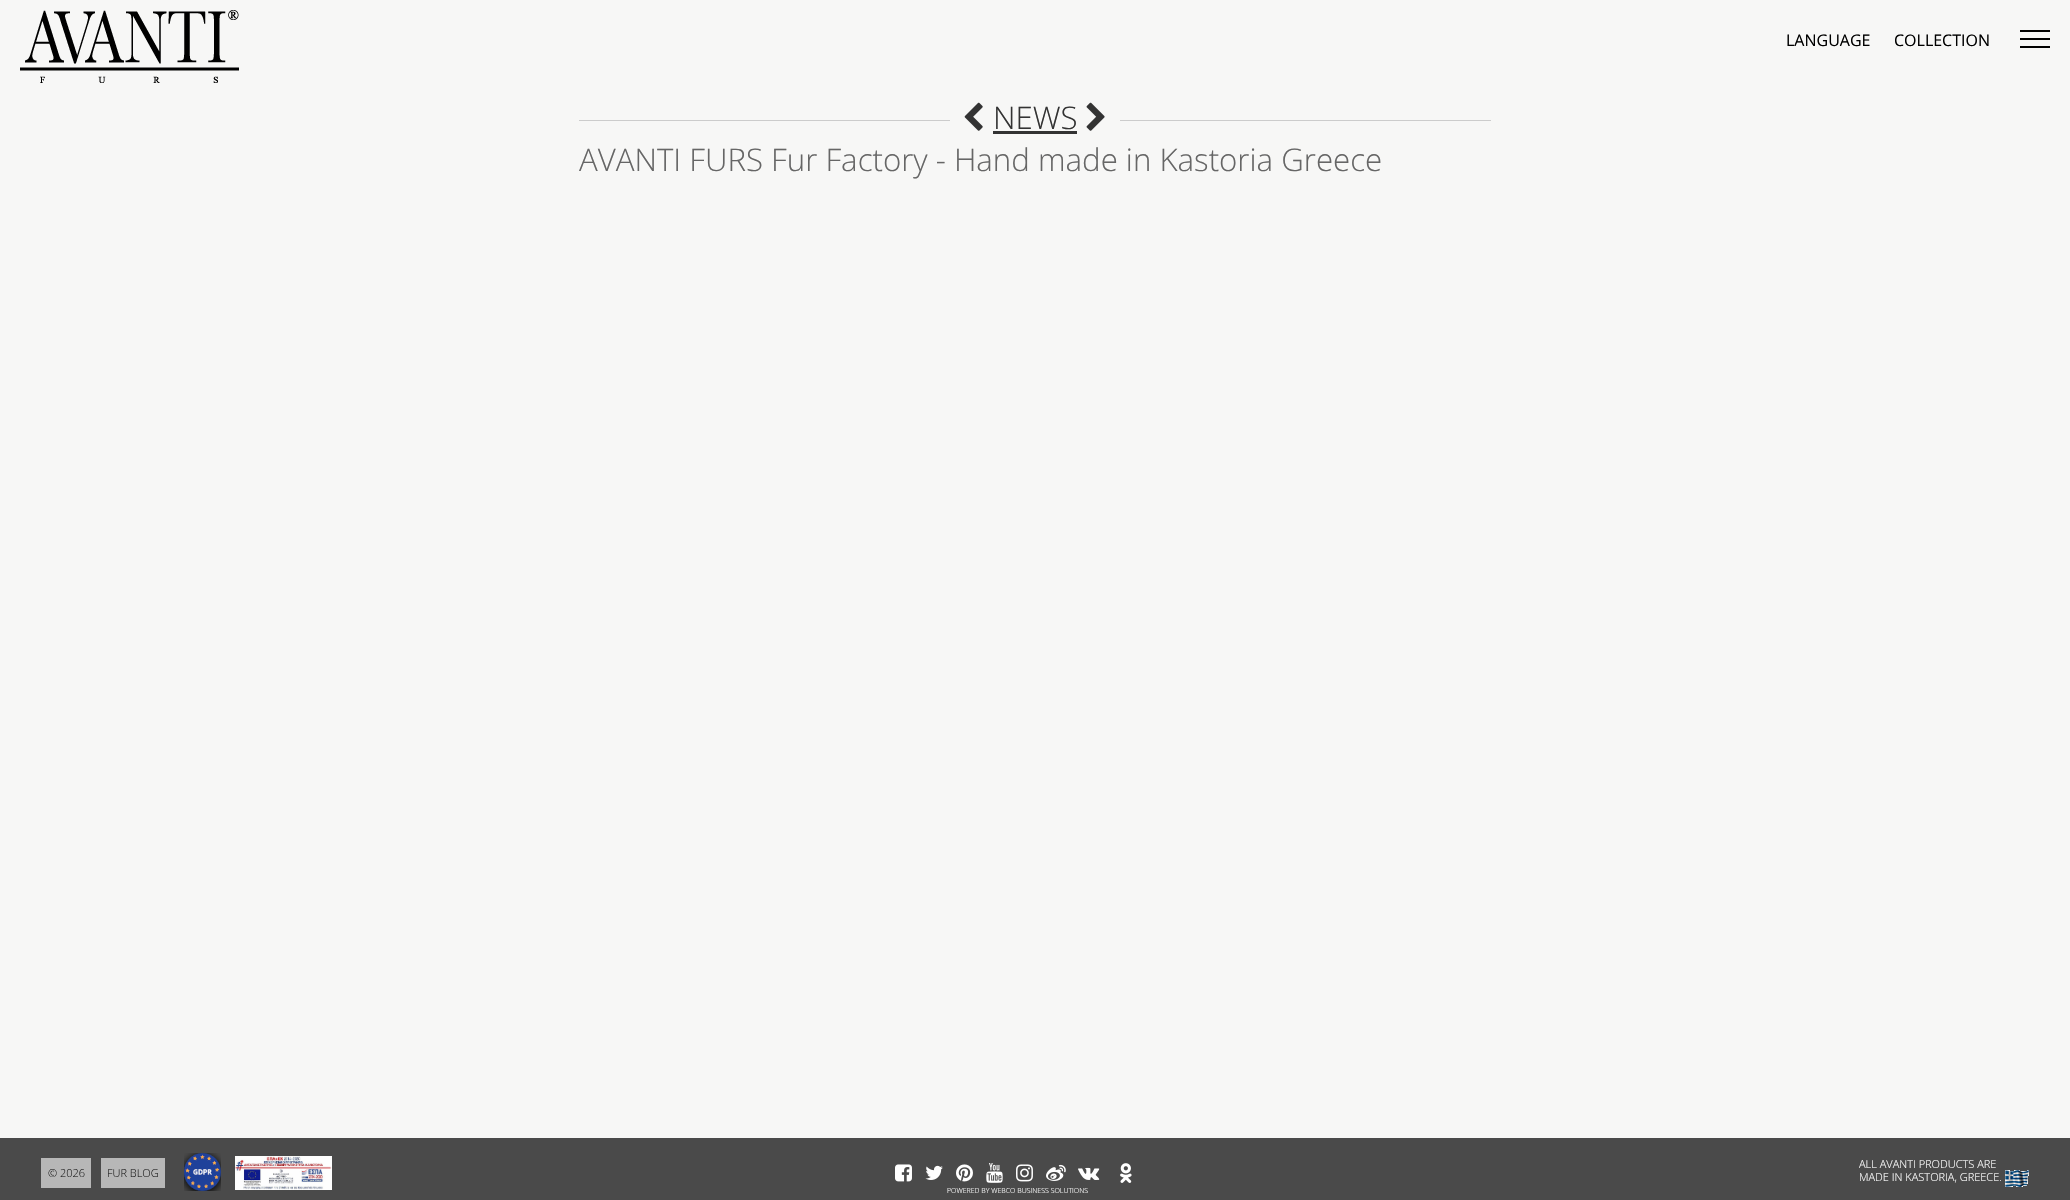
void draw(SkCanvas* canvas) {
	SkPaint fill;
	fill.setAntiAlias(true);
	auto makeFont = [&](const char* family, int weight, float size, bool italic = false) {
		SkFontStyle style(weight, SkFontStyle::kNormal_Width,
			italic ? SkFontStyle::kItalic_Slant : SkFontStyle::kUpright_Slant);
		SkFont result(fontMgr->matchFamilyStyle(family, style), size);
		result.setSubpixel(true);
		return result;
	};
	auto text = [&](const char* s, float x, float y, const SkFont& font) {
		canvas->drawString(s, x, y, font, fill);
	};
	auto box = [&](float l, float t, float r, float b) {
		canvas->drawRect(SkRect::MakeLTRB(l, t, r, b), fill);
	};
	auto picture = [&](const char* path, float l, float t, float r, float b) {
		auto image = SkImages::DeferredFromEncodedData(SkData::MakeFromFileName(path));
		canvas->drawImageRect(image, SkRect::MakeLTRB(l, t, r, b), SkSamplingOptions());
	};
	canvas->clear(0xFFF7F7F6);
	picture("image0.png", 20, 10, 239, 83);
	fill.setColor(0xFF000000);
	box(2020, 46, 2050, 48);
	box(2020, 38, 2050, 40);
	box(2020, 30, 2050, 32);
	fill.setColor(0xFFCCCCCC);
	box(579, 120, 1491, 121);
	fill.setColor(0xFFF7F7F6);
	box(950, 120, 1120, 121);
	picture("image1.png", 964, 102, 983, 131);
	fill.setColor(0xFF333333);
	box(993, 131, 1077, 134);
	picture("image2.png", 1086, 102, 1105, 131);
	fill.setColor(0xFF4A4A4A);
	box(0, 1138, 2070, 1200);
	fill.setColor(0xFFB7B7B7);
	box(41, 1158, 91, 1188);
	box(101, 1158, 165, 1188);
	picture("image3.png", 184, 1153, 221, 1191);
	picture("image4.png", 235, 1156, 332, 1190);
	picture("image5.png", 2005, 1170, 2029, 1187);
	picture("image6.png", 895, 1164, 912, 1182);
	picture("image7.png", 925, 1165, 943, 1180);
	picture("image8.png", 956, 1164, 973, 1182);
	picture("image9.png", 986, 1163, 1003, 1183);
	picture("image10.png", 1016, 1164, 1033, 1182);
	picture("image11.png", 1046, 1164, 1066, 1181);
	picture("image12.png", 1078, 1167, 1100, 1180);
	picture("image13.png", 1120, 1163, 1132, 1183);
	auto font1 = makeFont("Open Sans", 400, 16);
	fill.setColor(0xFF000000);
	text("LANGUAGE", 1786, 46, font1);
	text("COLLECTION", 1894, 46, font1);
	auto font2 = makeFont("Open Sans", 300, 31.2f);
	fill.setColor(0xFF333333);
	text("NEWS", 993, 129, font2);
	fill.setColor(0xFF666666);
	text("AVANTI FURS Fur Factory - Hand made in Kastoria Greece", 579, 171, font2);
	auto font3 = makeFont("Open Sans", 300, 11);
	fill.setColor(0xFF1E1E1E);
	text("© 2026", 48, 1177, font3);
	text("FUR BLOG", 107, 1177, font3);
	fill.setColor(0xFFFFFFFF);
	text("ALL AVANTI PRODUCTS ARE", 1859, 1168, font3);
	text("MADE IN KASTORIA, GREECE.", 1859, 1181, font3);
	auto font4 = makeFont("Open Sans", 300, 7);
	text("POWERED BY WEBCO BUSINESS SOLUTIONS", 947, 1193, font4);
}
